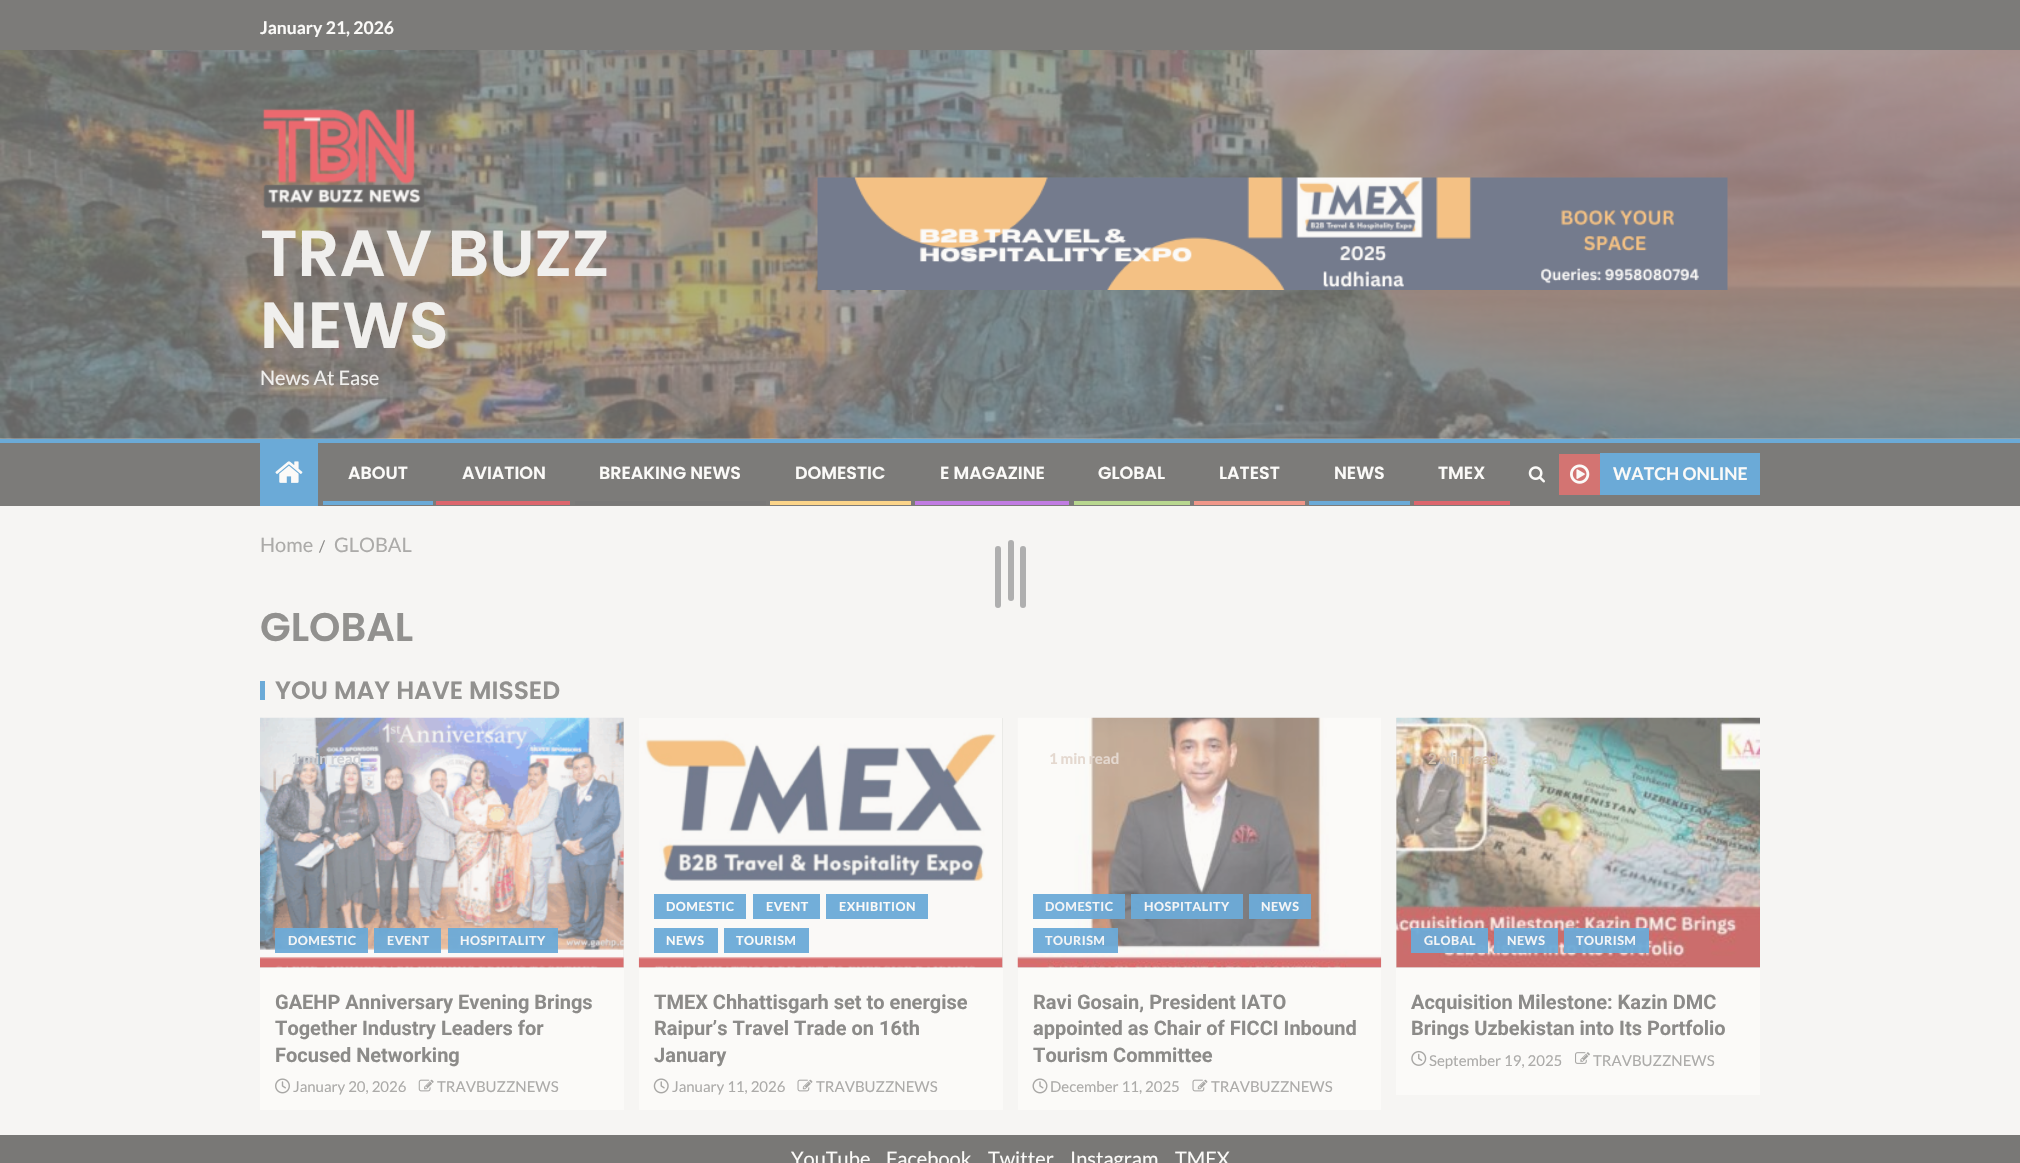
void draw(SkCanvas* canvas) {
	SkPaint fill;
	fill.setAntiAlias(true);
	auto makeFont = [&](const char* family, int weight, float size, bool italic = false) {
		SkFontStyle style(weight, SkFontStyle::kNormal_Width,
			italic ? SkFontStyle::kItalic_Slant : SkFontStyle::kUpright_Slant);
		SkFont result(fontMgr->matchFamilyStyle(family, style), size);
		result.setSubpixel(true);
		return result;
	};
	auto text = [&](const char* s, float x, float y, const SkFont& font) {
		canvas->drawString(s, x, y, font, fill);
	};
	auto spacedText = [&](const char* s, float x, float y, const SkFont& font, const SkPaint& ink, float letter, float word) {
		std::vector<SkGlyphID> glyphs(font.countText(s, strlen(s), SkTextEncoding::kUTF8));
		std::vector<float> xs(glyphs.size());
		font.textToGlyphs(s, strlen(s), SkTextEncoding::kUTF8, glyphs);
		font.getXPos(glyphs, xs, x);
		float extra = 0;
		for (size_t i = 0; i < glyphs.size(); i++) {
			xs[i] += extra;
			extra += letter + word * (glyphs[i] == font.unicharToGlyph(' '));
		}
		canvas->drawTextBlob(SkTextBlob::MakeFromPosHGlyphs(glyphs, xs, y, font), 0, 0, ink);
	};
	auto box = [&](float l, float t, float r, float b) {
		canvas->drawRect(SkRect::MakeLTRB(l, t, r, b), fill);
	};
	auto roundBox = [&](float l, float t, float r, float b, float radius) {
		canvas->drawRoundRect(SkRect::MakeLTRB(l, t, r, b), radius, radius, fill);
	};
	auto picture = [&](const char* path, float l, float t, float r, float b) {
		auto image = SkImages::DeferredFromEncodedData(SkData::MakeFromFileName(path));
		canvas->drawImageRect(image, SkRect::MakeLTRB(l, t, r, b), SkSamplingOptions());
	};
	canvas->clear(0xFFF6F5F3);
	fill.setColor(0xFF7C7B79);
	box(0, 0, 2020, 50);
	picture("image0.png", 0, 50, 2020, 439);
	picture("image1.png", 262, 108, 425, 209);
	picture("image2.png", 817, 177, 1728, 290);
	box(0, 443, 2020, 506);
	fill.setColor(0xFF6BAAD7);
	box(0, 439, 2020, 443);
	box(260, 443, 318, 506);
	picture("image3.png", 275, 461, 303, 483);
	box(323, 501, 433, 505);
	fill.setColor(0xFFDD666D);
	box(436, 501, 570, 505);
	fill.setColor(0xFF797877);
	box(575, 501, 766, 505);
	fill.setColor(0xFFFBD489);
	box(770, 501, 911, 505);
	fill.setColor(0xFFC17CE2);
	box(915, 501, 1069, 505);
	fill.setColor(0xFFB8D78F);
	box(1074, 501, 1190, 505);
	fill.setColor(0xFFF09789);
	box(1194, 501, 1305, 505);
	fill.setColor(0xFF6BAAD7);
	box(1309, 501, 1410, 505);
	fill.setColor(0xFFDD666D);
	box(1414, 501, 1510, 505);
	picture("image4.png", 1528, 466, 1545, 483);
	fill.setColor(0xFFD37472);
	box(1559, 454, 1600, 495);
	picture("image5.png", 1570, 464, 1590, 484);
	fill.setColor(0xFF6BAAD7);
	box(1600, 453, 1760, 495);
	box(260, 681, 265, 700);
	fill.setColor(0xFFE5E4E2);
	box(260, 718, 624, 968);
	picture("image6.png", 260, 717, 624, 968);
	fill.setColor(0xF26BAAD7);
	box(275, 928, 368, 953);
	box(374, 928, 441, 953);
	box(448, 928, 558, 953);
	fill.setColor(0xFFFBFAF8);
	box(260, 968, 624, 1110);
	picture("image7.png", 275, 1078, 290, 1094);
	picture("image8.png", 418, 1079, 434, 1092);
	fill.setColor(0xFFE5E4E2);
	box(639, 718, 1003, 968);
	picture("image9.png", 638, 718, 1003, 968);
	fill.setColor(0xFF72AED9);
	box(654, 894, 746, 919);
	box(753, 894, 820, 919);
	box(826, 894, 928, 919);
	box(654, 928, 718, 953);
	box(724, 928, 809, 953);
	fill.setColor(0xFFFBFAF8);
	box(639, 968, 1003, 1110);
	picture("image10.png", 653, 1078, 669, 1094);
	picture("image11.png", 797, 1079, 813, 1092);
	fill.setColor(0xFFE5E4E2);
	box(1018, 967, 1381, 968);
	picture("image12.png", 1017, 717, 1382, 968);
	fill.setColor(0xF26BAAD7);
	box(1033, 894, 1125, 919);
	box(1131, 894, 1243, 919);
	box(1249, 894, 1311, 919);
	box(1033, 928, 1118, 953);
	fill.setColor(0xFFFBFAF8);
	box(1018, 968, 1381, 1110);
	picture("image13.png", 1032, 1078, 1048, 1094);
	picture("image11.png", 1192, 1079, 1208, 1092);
	fill.setColor(0xFFE5E4E2);
	box(1396, 718, 1760, 968);
	picture("image14.png", 1396, 717, 1760, 968);
	fill.setColor(0xF26BAAD7);
	box(1411, 928, 1488, 953);
	box(1494, 928, 1558, 953);
	box(1564, 928, 1649, 953);
	fill.setColor(0xFFFBFAF8);
	box(1396, 968, 1760, 1095);
	picture("image15.png", 1411, 1050, 1427, 1066);
	picture("image16.png", 1575, 1052, 1590, 1064);
	fill.setColor(0xFF797876);
	box(0, 1135, 2020, 1163);
	fill.setColor(0xFFAFAFAF);
	roundBox(1008, 540, 1014, 601, 3);
	roundBox(995, 546, 1001, 608, 3);
	roundBox(1020, 546, 1026, 608, 3);
	auto font1 = makeFont("Lato", 700, 17.5f);
	fill.setColor(0xFFFBFAF8);
	text("January 21, 2026", 260, 34, font1);
	auto font2 = makeFont("Poppins", 600, 65);
	fill.setColor(0xFFF0EFED);
	text("TRAV BUZZ", 260, 276, font2);
	text("NEWS", 260, 348, font2);
	auto font3 = makeFont("Lato", 400, 20);
	text("News At Ease", 260, 385, font3);
	auto font4 = makeFont("Poppins", 600, 17.5f);
	fill.setColor(0xFFFBFAF8);
	text("ABOUT", 348, 479, font4);
	text("AVIATION", 462, 479, font4);
	text("BREAKING NEWS", 599, 479, font4);
	text("DOMESTIC", 795, 479, font4);
	text("E MAGAZINE", 940, 479, font4);
	text("GLOBAL", 1098, 479, font4);
	text("LATEST", 1219, 479, font4);
	text("NEWS", 1334, 479, font4);
	text("TMEX", 1438, 479, font4);
	text("WATCH ONLINE", 1613, 480, font1);
	fill.setColor(0xFFACABA9);
	text("Home", 260, 552, font3);
	auto font5 = makeFont("Lato", 400, 16);
	fill.setColor(0xFF8C8B89);
	text("/", 319, 552, font5);
	fill.setColor(0xFFACABA9);
	text("GLOBAL", 334, 552, font3);
	auto font6 = makeFont("Poppins", 600, 40);
	fill.setColor(0xFF92918F);
	text("GLOBAL", 260, 641, font6);
	auto font7 = makeFont("Poppins", 600, 25);
	text("YOU MAY HAVE MISSED", 275, 699, font7);
	auto font8 = makeFont("Lato", 700, 15);
	fill.setColor(0xFFD0D2D6);
	text("1 min read", 291, 764, font8);
	auto font9 = makeFont("Lato", 700, 12.5f);
	fill.setColor(0xFFF4F5F6);
	spacedText("DOMESTIC", 288, 945, font9, fill, 0.5f, 0);
	spacedText("EVENT", 387, 945, font9, fill, 0.5f, 0);
	spacedText("HOSPITALITY", 460, 945, font9, fill, 0.5f, 0);
	auto font10 = makeFont("Roboto", 700, 20);
	fill.setColor(0xFF8C8B89);
	text("GAEHP Anniversary Evening Brings", 275, 1009, font10);
	text("Together Industry Leaders for", 275, 1035, font10);
	text("Focused Networking", 275, 1062, font10);
	auto font11 = makeFont("Lato", 400, 15);
	fill.setColor(0xFFACABA9);
	text("January 20, 2026", 293, 1092, font11);
	text("TRAVBUZZNEWS", 437, 1092, font11);
	fill.setColor(0xFFFBFAF8);
	spacedText("DOMESTIC", 666, 911, font9, fill, 0.5f, 0);
	spacedText("EVENT", 766, 911, font9, fill, 0.5f, 0);
	spacedText("EXHIBITION", 839, 911, font9, fill, 0.5f, 0);
	spacedText("NEWS", 666, 945, font9, fill, 0.5f, 0);
	spacedText("TOURISM", 736, 945, font9, fill, 0.5f, 0);
	fill.setColor(0xFF8C8B89);
	text("TMEX Chhattisgarh set to energise", 654, 1009, font10);
	text("Raipur’s Travel Trade on 16th", 654, 1035, font10);
	text("January", 654, 1062, font10);
	fill.setColor(0xFFACABA9);
	text("January 11, 2026", 672, 1092, font11);
	text("TRAVBUZZNEWS", 816, 1092, font11);
	fill.setColor(0xFFE4D8CF);
	text("1 min read", 1049, 764, font8);
	fill.setColor(0xFFF4F5F6);
	spacedText("DOMESTIC", 1045, 911, font9, fill, 0.5f, 0);
	spacedText("HOSPITALITY", 1144, 911, font9, fill, 0.5f, 0);
	spacedText("NEWS", 1261, 911, font9, fill, 0.5f, 0);
	spacedText("TOURISM", 1045, 945, font9, fill, 0.5f, 0);
	fill.setColor(0xFF8C8B89);
	text("Ravi Gosain, President IATO", 1033, 1009, font10);
	text("appointed as Chair of FICCI Inbound", 1033, 1035, font10);
	text("Tourism Committee", 1033, 1062, font10);
	fill.setColor(0xFFACABA9);
	text("December 11, 2025", 1050, 1092, font11);
	text("TRAVBUZZNEWS", 1211, 1092, font11);
	fill.setColor(0xFFD4C0AB);
	text("2 min read", 1428, 764, font8);
	fill.setColor(0xFFF4F5F6);
	spacedText("GLOBAL", 1424, 945, font9, fill, 0.5f, 0);
	spacedText("NEWS", 1507, 945, font9, fill, 0.5f, 0);
	spacedText("TOURISM", 1576, 945, font9, fill, 0.5f, 0);
	fill.setColor(0xFF8C8B89);
	text("Acquisition Milestone: Kazin DMC", 1411, 1009, font10);
	text("Brings Uzbekistan into Its Portfolio", 1411, 1035, font10);
	fill.setColor(0xFFACABA9);
	text("September 19, 2025", 1429, 1066, font11);
	text("TRAVBUZZNEWS", 1593, 1066, font11);
	fill.setColor(0xFFFBFAF8);
	text("YouTube", 791, 1166, font3);
	text("Facebook", 886, 1166, font3);
	text("Twitter", 988, 1166, font3);
	text("Instagram", 1070, 1166, font3);
	text("TMEX", 1175, 1166, font3);
}
